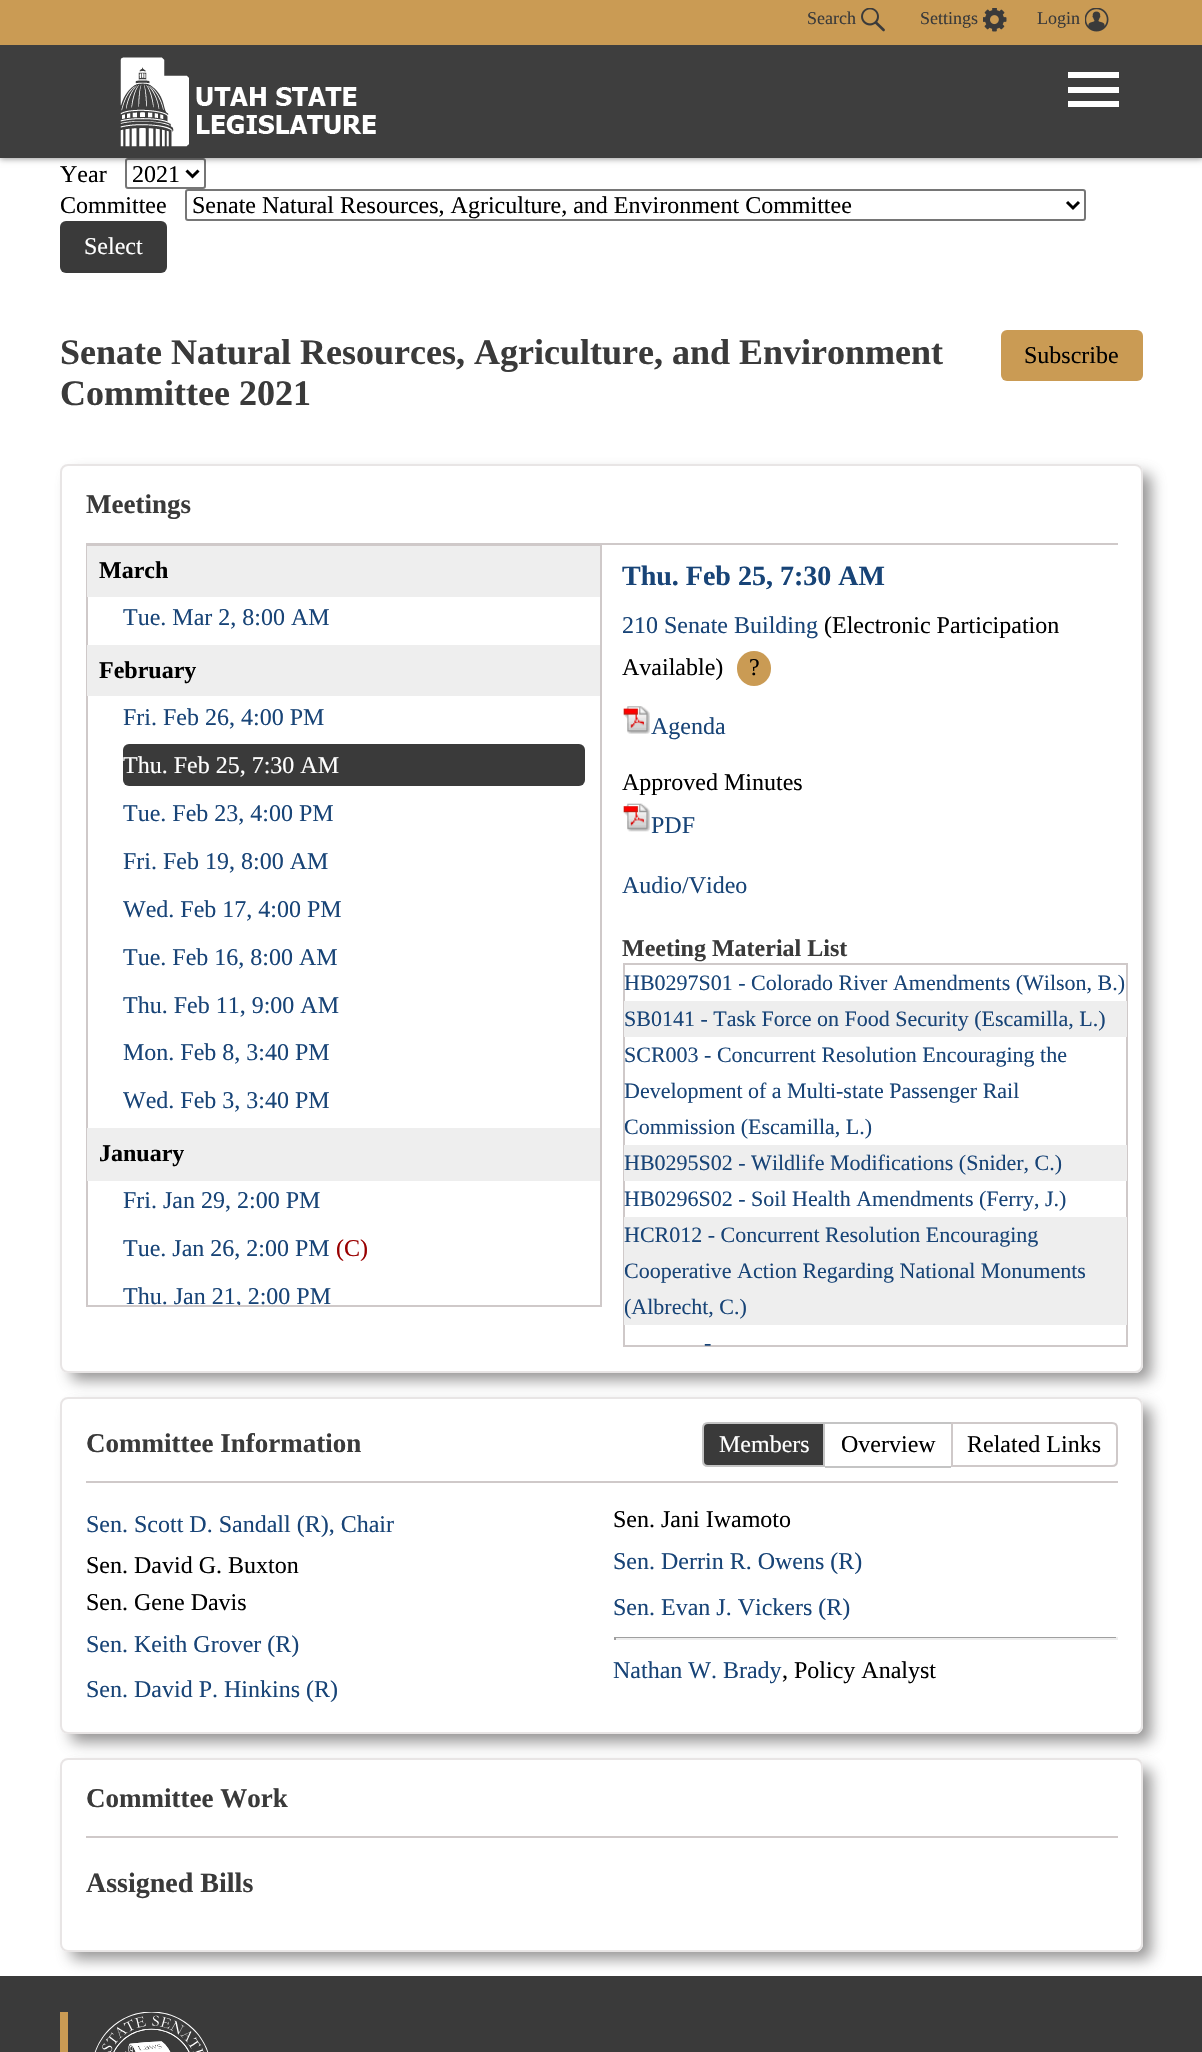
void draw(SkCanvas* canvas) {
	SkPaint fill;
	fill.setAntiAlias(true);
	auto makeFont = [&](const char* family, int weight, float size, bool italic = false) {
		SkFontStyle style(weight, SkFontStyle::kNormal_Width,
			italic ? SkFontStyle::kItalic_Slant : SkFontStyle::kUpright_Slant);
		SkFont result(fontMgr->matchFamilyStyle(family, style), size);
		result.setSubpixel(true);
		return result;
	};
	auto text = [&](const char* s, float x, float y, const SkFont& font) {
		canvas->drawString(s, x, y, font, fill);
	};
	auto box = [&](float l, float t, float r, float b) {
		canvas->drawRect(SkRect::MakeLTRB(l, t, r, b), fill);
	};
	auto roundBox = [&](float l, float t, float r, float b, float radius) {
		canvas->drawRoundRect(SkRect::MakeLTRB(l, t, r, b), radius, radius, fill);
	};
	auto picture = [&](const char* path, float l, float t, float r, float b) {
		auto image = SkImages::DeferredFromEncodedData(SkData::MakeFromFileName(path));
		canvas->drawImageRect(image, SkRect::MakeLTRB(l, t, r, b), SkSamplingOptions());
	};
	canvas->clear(0xFFFFFFFF);
	fill.setStyle(SkPaint::kStroke_Style);
	fill.setStrokeWidth(2);
	fill.setColor(0xFF767676);
	canvas->drawRoundRect(SkRect::MakeLTRB(126, 159, 205, 188), 2, 2, fill);
	canvas->save();
	canvas->clipPath(SkPathBuilder(SkPathFillType::kEvenOdd).moveTo(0, 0).lineTo(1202, 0).lineTo(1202, 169).lineTo(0, 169).close().moveTo(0, 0).lineTo(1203, 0).lineTo(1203, 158).lineTo(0, 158).close().detach(), true);
	fill.setStyle(SkPaint::kFill_Style);
	fill.setColor(0x66000000);
	fill.setMaskFilter(SkMaskFilter::MakeBlur(kNormal_SkBlurStyle, 3));
	canvas->drawRect(SkRect::MakeLTRB(0, 2, 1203, 159), fill);
	fill.setMaskFilter(nullptr);
	canvas->restore();
	fill.setColor(0xFFCA9B54);
	box(0, 0, 1202, 45);
	picture("image0.png", 861, 8, 885, 32);
	picture("image1.png", 983, 8, 1007, 32);
	picture("image2.png", 1085, 8, 1109, 32);
	fill.setColor(0xFA3A3A3A);
	box(0, 45, 1202, 158);
	picture("image3.png", 120, 57, 376, 147);
	fill.setColor(0xFFFFFFFF);
	canvas->drawPath(SkPathBuilder().moveTo(1068, 87).lineTo(1119, 87).lineTo(1119, 93).lineTo(1068, 93).close().moveTo(1068, 72).lineTo(1119, 72).lineTo(1119, 78).lineTo(1068, 78).close().moveTo(1068, 101).lineTo(1119, 101).lineTo(1119, 107).lineTo(1068, 107).close().detach(), fill);
	fill.setStyle(SkPaint::kStroke_Style);
	fill.setStrokeWidth(3);
	fill.setColor(0xFF000000);
	canvas->drawPath(SkPathBuilder().moveTo(186.5f, 170.5f).lineTo(192.5f, 176.5f).lineTo(198.5f, 170.5f).detach(), fill);
	fill.setStrokeWidth(2);
	fill.setColor(0xFF767676);
	canvas->drawRoundRect(SkRect::MakeLTRB(186, 190, 1085, 220), 2, 2, fill);
	fill.setStrokeWidth(3);
	fill.setColor(0xFF000000);
	canvas->drawPath(SkPathBuilder().moveTo(1067, 202).lineTo(1073, 208).lineTo(1079, 202).detach(), fill);
	fill.setStyle(SkPaint::kFill_Style);
	fill.setColor(0xFF3A3A3A);
	roundBox(60, 221, 167, 273, 6);
	fill.setColor(0xFFCA9B54);
	roundBox(1001, 330, 1143, 381, 6);
	canvas->save();
	canvas->clipPath(SkPathBuilder(SkPathFillType::kEvenOdd).moveTo(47, 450).lineTo(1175, 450).lineTo(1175, 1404).lineTo(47, 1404).close().moveTo(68, 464).lineTo(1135, 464).cubicTo(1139.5f, 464, 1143, 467.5f, 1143, 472).lineTo(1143, 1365).cubicTo(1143, 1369.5f, 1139.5f, 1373, 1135, 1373).lineTo(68, 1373).cubicTo(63.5f, 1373, 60, 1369.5f, 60, 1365).lineTo(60, 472).cubicTo(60, 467.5f, 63.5f, 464, 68, 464).close().detach(), true);
	fill.setColor(0xBF6F6D6D);
	fill.setMaskFilter(SkMaskFilter::MakeBlur(kNormal_SkBlurStyle, 7.5f));
	canvas->drawRoundRect(SkRect::MakeLTRB(71, 474, 1151, 1380), 6, 6, fill);
	fill.setMaskFilter(nullptr);
	canvas->restore();
	fill.setStyle(SkPaint::kStroke_Style);
	fill.setStrokeWidth(2);
	fill.setColor(0xFFE8E5E5);
	canvas->drawRoundRect(SkRect::MakeLTRB(61, 465, 1142, 1372), 7, 7, fill);
	fill.setStyle(SkPaint::kFill_Style);
	fill.setColor(0xFFCFC9C9);
	box(86, 543, 1118, 545);
	fill.setStyle(SkPaint::kStroke_Style);
	canvas->drawRect(SkRect::MakeLTRB(87, 546, 601, 1306), fill);
	fill.setStyle(SkPaint::kFill_Style);
	fill.setColor(0xFFEEEEEE);
	box(87, 546, 600, 597);
	box(87, 645, 600, 696);
	fill.setColor(0xFF3A3A3A);
	roundBox(123, 744, 585, 786, 6);
	fill.setColor(0xFFEEEEEE);
	box(87, 1128, 600, 1181);
	fill.setColor(0xFFCA9B54);
	roundBox(737, 651, 771, 686, 17);
	picture("image4.png", 623, 706, 650, 734);
	picture("image5.png", 623, 803, 650, 832);
	fill.setStyle(SkPaint::kStroke_Style);
	fill.setColor(0xFFCFC9C9);
	canvas->drawRect(SkRect::MakeLTRB(624, 964, 1127, 1346), fill);
	fill.setStyle(SkPaint::kFill_Style);
	fill.setColor(0xFFEEEEEE);
	box(624, 1001, 1127, 1037);
	box(624, 1145, 1127, 1181);
	box(624, 1217, 1127, 1325);
	canvas->save();
	canvas->clipPath(SkPathBuilder(SkPathFillType::kEvenOdd).moveTo(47, 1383).lineTo(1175, 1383).lineTo(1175, 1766).lineTo(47, 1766).close().moveTo(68, 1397).lineTo(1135, 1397).cubicTo(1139.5f, 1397, 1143, 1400.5f, 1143, 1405).lineTo(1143, 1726).cubicTo(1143, 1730.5f, 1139.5f, 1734, 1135, 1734).lineTo(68, 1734).cubicTo(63.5f, 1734, 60, 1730.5f, 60, 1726).lineTo(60, 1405).cubicTo(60, 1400.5f, 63.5f, 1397, 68, 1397).close().detach(), true);
	fill.setColor(0xBF6F6D6D);
	fill.setMaskFilter(SkMaskFilter::MakeBlur(kNormal_SkBlurStyle, 7.5f));
	canvas->drawRoundRect(SkRect::MakeLTRB(71, 1407, 1151, 1742), 6, 6, fill);
	fill.setMaskFilter(nullptr);
	canvas->restore();
	fill.setStyle(SkPaint::kStroke_Style);
	fill.setColor(0xFFE8E5E5);
	canvas->drawRoundRect(SkRect::MakeLTRB(61, 1398, 1142, 1733), 7, 7, fill);
	fill.setStyle(SkPaint::kFill_Style);
	fill.setColor(0xFFCFC9C9);
	box(86, 1481, 1118, 1483);
	fill.setColor(0xFF3A3A3A);
	canvas->drawPath(SkPathBuilder().moveTo(708, 1423).lineTo(824, 1423).lineTo(824, 1466).lineTo(708, 1466).cubicTo(705, 1466, 703, 1464, 703, 1461).lineTo(703, 1428).cubicTo(703, 1425, 705, 1423, 708, 1423).close().detach(), fill);
	fill.setStyle(SkPaint::kStroke_Style);
	fill.setColor(0xFFC4C4C4);
	canvas->drawPath(SkPathBuilder().moveTo(708, 1423).lineTo(824, 1423).lineTo(824, 1466).lineTo(708, 1466).cubicTo(705, 1466, 703, 1464, 703, 1461).lineTo(703, 1428).cubicTo(703, 1425, 705, 1423, 708, 1423).close().detach(), fill);
	fill.setStyle(SkPaint::kFill_Style);
	box(825, 1422, 951, 1424);
	box(825, 1466, 951, 1468);
	fill.setStyle(SkPaint::kStroke_Style);
	fill.setColor(0xFFCFC9C9);
	canvas->drawPath(SkPathBuilder().moveTo(952, 1423).lineTo(1112, 1423).cubicTo(1115, 1423, 1117, 1425, 1117, 1428).lineTo(1117, 1461).cubicTo(1117, 1464, 1115, 1466, 1112, 1466).lineTo(952, 1466).close().detach(), fill);
	fill.setStyle(SkPaint::kFill_Style);
	fill.setColor(0xFF9F9F9F);
	box(614, 1637, 1118, 1638);
	fill.setColor(0xFFEEEEEE);
	box(1116, 1637, 1118, 1640);
	box(614, 1638, 1118, 1640);
	fill.setColor(0xFF9F9F9F);
	box(614, 1637, 616, 1640);
	canvas->save();
	canvas->clipPath(SkPathBuilder(SkPathFillType::kEvenOdd).moveTo(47, 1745).lineTo(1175, 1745).lineTo(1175, 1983).lineTo(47, 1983).close().moveTo(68, 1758).lineTo(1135, 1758).cubicTo(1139.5f, 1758, 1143, 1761.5f, 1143, 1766).lineTo(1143, 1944).cubicTo(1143, 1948.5f, 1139.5f, 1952, 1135, 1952).lineTo(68, 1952).cubicTo(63.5f, 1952, 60, 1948.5f, 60, 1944).lineTo(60, 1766).cubicTo(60, 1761.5f, 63.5f, 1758, 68, 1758).close().detach(), true);
	fill.setColor(0xBF6F6D6D);
	fill.setMaskFilter(SkMaskFilter::MakeBlur(kNormal_SkBlurStyle, 7.5f));
	canvas->drawRoundRect(SkRect::MakeLTRB(71, 1769, 1151, 1959), 6, 6, fill);
	fill.setMaskFilter(nullptr);
	canvas->restore();
	fill.setStyle(SkPaint::kStroke_Style);
	fill.setColor(0xFFE8E5E5);
	canvas->drawRoundRect(SkRect::MakeLTRB(61, 1759, 1142, 1951), 7, 7, fill);
	fill.setStyle(SkPaint::kFill_Style);
	fill.setColor(0xFFCFC9C9);
	box(86, 1836, 1118, 1838);
	fill.setColor(0xFF3A3A3A);
	box(0, 1976, 1202, 2052);
	fill.setColor(0xFFCA9B54);
	box(60, 2012, 68, 2052);
	picture("image6.png", 94, 2012, 209, 2052);
	auto font1 = makeFont("Liberation Serif", 400, 18);
	fill.setColor(0xFF3A3A3A);
	text("Search", 807, 24, font1);
	text("Settings", 920, 24, font1);
	text("Login", 1037, 24, font1);
	auto font2 = makeFont("Liberation Serif", 400, 24);
	fill.setColor(0xFF000000);
	text("Year", 60, 182, font2);
	text("2021", 132, 182, font2);
	text("Committee", 60, 213, font2);
	text("Senate Natural Resources, Agriculture, and Environment Committee", 192, 213, font2);
	fill.setColor(0xFFFFFFFF);
	text("Select", 84, 254, font2);
	auto font3 = makeFont("Liberation Serif", 700, 36);
	fill.setColor(0xFF3A3A3A);
	text("Senate Natural Resources, Agriculture, and Environment", 60, 364, font3);
	text("Committee 2021", 60, 405, font3);
	fill.setColor(0xFF000000);
	text("Subscribe", 1024, 363, font2);
	auto font4 = makeFont("Liberation Serif", 700, 27);
	fill.setColor(0xFF3A3A3A);
	text("Meetings", 86, 513, font4);
	auto font5 = makeFont("Liberation Serif", 700, 24);
	fill.setColor(0xFF000000);
	text("March", 99, 578, font5);
	fill.setColor(0xFF184477);
	text("Tue. Mar 2, 8:00 AM", 123, 625, font2);
	fill.setColor(0xFF000000);
	text("February", 99, 678, font5);
	fill.setColor(0xFF184477);
	text("Fri. Feb 26, 4:00 PM", 123, 725, font2);
	fill.setColor(0xFFFFFFFF);
	text("Thu. Feb 25, 7:30 AM", 123, 773, font2);
	fill.setColor(0xFF184477);
	text("Tue. Feb 23, 4:00 PM", 123, 821, font2);
	text("Fri. Feb 19, 8:00 AM", 123, 869, font2);
	text("Wed. Feb 17, 4:00 PM", 123, 917, font2);
	text("Tue. Feb 16, 8:00 AM", 123, 965, font2);
	text("Thu. Feb 11, 9:00 AM", 123, 1013, font2);
	text("Mon. Feb 8, 3:40 PM", 123, 1060, font2);
	text("Wed. Feb 3, 3:40 PM", 123, 1108, font2);
	fill.setColor(0xFF000000);
	text("January", 99, 1161, font5);
	fill.setColor(0xFF184477);
	text("Fri. Jan 29, 2:00 PM", 123, 1208, font2);
	text("Tue. Jan 26, 2:00 PM", 123, 1256, font2);
	fill.setColor(0xFF990000);
	text("(C)", 336, 1256, font2);
	canvas->save();
	canvas->clipRect(SkRect::MakeLTRB(87, 546, 600, 1305));
	fill.setColor(0xFF184477);
	text("Thu. Jan 21, 2:00 PM", 123, 1304, font2);
	canvas->restore();
	auto font6 = makeFont("Liberation Serif", 700, 28);
	text("Thu. Feb 25, 7:30 AM", 622, 585, font6);
	text("210 Senate Building", 622, 633, font2);
	fill.setColor(0xFF000000);
	text("(Electronic Participation", 824, 633, font2);
	text("Available)", 622, 675, font2);
	text("?", 749, 675, font2);
	fill.setColor(0xFF184477);
	text("Agenda", 651, 734, font2);
	fill.setColor(0xFF000000);
	text("Approved Minutes", 622, 790, font2);
	fill.setColor(0xFF184477);
	text("PDF", 651, 833, font2);
	text("Audio/Video", 622, 893, font2);
	fill.setColor(0xFF3A3A3A);
	text("Meeting Material List", 622, 956, font5);
	auto font7 = makeFont("Liberation Serif", 400, 22);
	fill.setColor(0xFF184477);
	text("HB0297S01 - Colorado River Amendments (Wilson, B.)", 624, 990, font7);
	text("SB0141 - Task Force on Food Security (Escamilla, L.)", 624, 1026, font7);
	text("SCR003 - Concurrent Resolution Encouraging the", 624, 1062, font7);
	text("Development of a Multi-state Passenger Rail", 624, 1098, font7);
	text("Commission (Escamilla, L.)", 624, 1134, font7);
	text("HB0295S02 - Wildlife Modifications (Snider, C.)", 624, 1170, font7);
	text("HB0296S02 - Soil Health Amendments (Ferry, J.)", 624, 1206, font7);
	text("HCR012 - Concurrent Resolution Encouraging", 624, 1242, font7);
	text("Cooperative Action Regarding National Monuments", 624, 1278, font7);
	text("(Albrecht, C.)", 624, 1314, font7);
	text("-", 704, 1350, font7);
	fill.setColor(0xFF3A3A3A);
	text("Committee Information", 86, 1452, font4);
	fill.setColor(0xFFFFFFFF);
	text("Members", 719, 1452, font2);
	fill.setColor(0xFF000000);
	text("Overview", 841, 1452, font2);
	text("Related Links", 967, 1452, font2);
	fill.setColor(0xFF184477);
	text("Sen. Scott D. Sandall (R), Chair", 86, 1532, font2);
	fill.setColor(0xFF000000);
	text("Sen. Jani Iwamoto", 613, 1527, font2);
	text("Sen. David G. Buxton", 86, 1573, font2);
	fill.setColor(0xFF184477);
	text("Sen. Derrin R. Owens (R)", 613, 1569, font2);
	fill.setColor(0xFF000000);
	text("Sen. Gene Davis", 86, 1610, font2);
	fill.setColor(0xFF184477);
	text("Sen. Evan J. Vickers (R)", 613, 1615, font2);
	text("Sen. Keith Grover (R)", 86, 1652, font2);
	text("Nathan W. Brady", 613, 1678, font2);
	fill.setColor(0xFF000000);
	text(", Policy Analyst", 782, 1678, font2);
	fill.setColor(0xFF184477);
	text("Sen. David P. Hinkins (R)", 86, 1697, font2);
	fill.setColor(0xFF3A3A3A);
	text("Committee Work", 86, 1807, font4);
	text("Assigned Bills", 86, 1892, font6);
}
